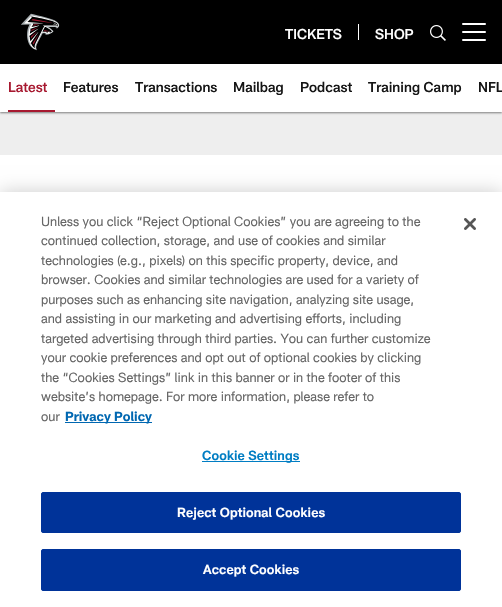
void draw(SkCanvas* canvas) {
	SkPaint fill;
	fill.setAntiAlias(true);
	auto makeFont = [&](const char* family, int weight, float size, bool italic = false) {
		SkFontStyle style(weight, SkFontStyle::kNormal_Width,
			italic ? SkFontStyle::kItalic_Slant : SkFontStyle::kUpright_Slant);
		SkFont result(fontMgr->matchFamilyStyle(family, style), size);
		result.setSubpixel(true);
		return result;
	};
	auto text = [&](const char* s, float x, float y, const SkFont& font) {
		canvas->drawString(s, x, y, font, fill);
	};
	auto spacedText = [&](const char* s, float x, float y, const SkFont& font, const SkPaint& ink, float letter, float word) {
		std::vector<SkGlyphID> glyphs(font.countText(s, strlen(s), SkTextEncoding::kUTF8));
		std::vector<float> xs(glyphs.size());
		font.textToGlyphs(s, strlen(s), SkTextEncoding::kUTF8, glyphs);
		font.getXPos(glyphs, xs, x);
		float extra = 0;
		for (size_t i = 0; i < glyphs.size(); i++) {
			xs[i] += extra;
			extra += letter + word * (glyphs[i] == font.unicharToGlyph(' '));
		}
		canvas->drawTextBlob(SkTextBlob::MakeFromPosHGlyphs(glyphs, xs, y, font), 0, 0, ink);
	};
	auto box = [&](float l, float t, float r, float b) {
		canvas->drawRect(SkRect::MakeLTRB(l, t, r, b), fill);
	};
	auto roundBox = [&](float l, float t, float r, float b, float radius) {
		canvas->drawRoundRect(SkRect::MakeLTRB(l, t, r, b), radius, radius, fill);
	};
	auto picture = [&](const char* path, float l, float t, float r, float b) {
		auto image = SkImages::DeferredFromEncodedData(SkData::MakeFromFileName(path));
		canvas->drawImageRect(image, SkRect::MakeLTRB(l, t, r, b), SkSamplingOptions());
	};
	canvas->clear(0xFFEEEEEE);
	fill.setColor(0xFF000000);
	box(0, 0, 502, 64);
	picture("image0.png", 21, 13, 60, 51);
	fill.setColor(0xFFFFFFFF);
	box(358, 24, 359, 40);
	picture("image1.png", 430, 25, 446, 41);
	roundBox(462, 31, 486, 33, 1);
	roundBox(462, 23, 486, 25, 1);
	roundBox(462, 39, 486, 41, 1);
	fill.setColor(0x78000000);
	fill.setMaskFilter(SkMaskFilter::MakeBlur(kNormal_SkBlurStyle, 1));
	canvas->drawRect(SkRect::MakeLTRB(0, 65, 502, 113), fill);
	fill.setMaskFilter(nullptr);
	fill.setColor(0xFFFFFFFF);
	box(0, 64, 502, 112);
	fill.setColor(0xFFA71930);
	box(8, 110, 55, 112);
	fill.setColor(0xFFFFFFFF);
	box(0, 155, 502, 192);
	fill.setColor(0x33000000);
	fill.setMaskFilter(SkMaskFilter::MakeBlur(kNormal_SkBlurStyle, 9));
	canvas->drawRect(SkRect::MakeLTRB(0, 192, 502, 607), fill);
	fill.setMaskFilter(nullptr);
	fill.setColor(0xFFFFFFFF);
	box(0, 192, 502, 607);
	fill.setColor(0xFF0067B1);
	box(65, 422, 152, 423);
	fill.setColor(0xFF007DC3);
	box(202, 461, 300, 462);
	fill.setColor(0xFF003399);
	canvas->drawRoundRect(SkRect::MakeLTRB(41.5f, 492.5f, 460.5f, 532.5f), 1.5f, 1.5f, fill);
	fill.setStyle(SkPaint::kStroke_Style);
	fill.setStrokeWidth(1);
	canvas->drawRoundRect(SkRect::MakeLTRB(41.5f, 492.5f, 460.5f, 532.5f), 1.5f, 1.5f, fill);
	fill.setStyle(SkPaint::kFill_Style);
	canvas->drawRoundRect(SkRect::MakeLTRB(41.5f, 549.5f, 460.5f, 590.5f), 1.5f, 1.5f, fill);
	fill.setStyle(SkPaint::kStroke_Style);
	canvas->drawRoundRect(SkRect::MakeLTRB(41.5f, 549.5f, 460.5f, 590.5f), 1.5f, 1.5f, fill);
	picture("image2.png", 464, 218, 476, 230);
	auto font1 = makeFont("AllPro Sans", 500, 14);
	fill.setStyle(SkPaint::kFill_Style);
	fill.setColor(0xFFFFFFFF);
	text("TICKETS", 285, 39, font1);
	text("SHOP", 375, 39, font1);
	fill.setColor(0xFFA71930);
	text("Latest", 8, 92, font1);
	fill.setColor(0xFF151515);
	text("Features", 63, 92, font1);
	text("Transactions", 135, 92, font1);
	text("Mailbag", 233, 92, font1);
	text("Podcast", 300, 92, font1);
	text("Training Camp", 368, 92, font1);
	text("NFL", 478, 92, font1);
	auto font2 = makeFont("AllPro Sans", 400, 13);
	fill.setColor(0xFF666666);
	text("Unless you click “Reject Optional Cookies” you are agreeing to the", 41, 226, font2);
	text("continued collection, storage, and use of cookies and similar", 41, 245, font2);
	text("technologies (e.g., pixels) on this specific property, device, and", 41, 265, font2);
	text("browser. Cookies and similar technologies are used for a variety of", 41, 284, font2);
	text("purposes such as enhancing site navigation, analyzing site usage,", 41, 304, font2);
	text("and assisting in our marketing and advertising efforts, including", 41, 323, font2);
	text("targeted advertising through third parties. You can further customize", 41, 343, font2);
	text("your cookie preferences and opt out of optional cookies by clicking", 41, 362, font2);
	text("the “Cookies Settings” link in this banner or in the footer of this", 41, 382, font2);
	text("website’s homepage. For more information, please refer to", 41, 401, font2);
	text("our", 41, 421, font2);
	auto font3 = makeFont("AllPro Sans", 700, 13);
	fill.setColor(0xFF0067B1);
	text("Privacy Policy", 65, 421, font3);
	auto font4 = makeFont("AllPro Sans", 600, 13);
	fill.setColor(0xFF007DC3);
	spacedText("Cookie Settings", 202, 460, font4, fill, 0.1f, 0);
	fill.setColor(0xFFFFFFFF);
	spacedText("Reject Optional Cookies", 177, 517, font4, fill, 0.1f, 0);
	spacedText("Accept Cookies", 203, 574, font4, fill, 0.1f, 0);
}
